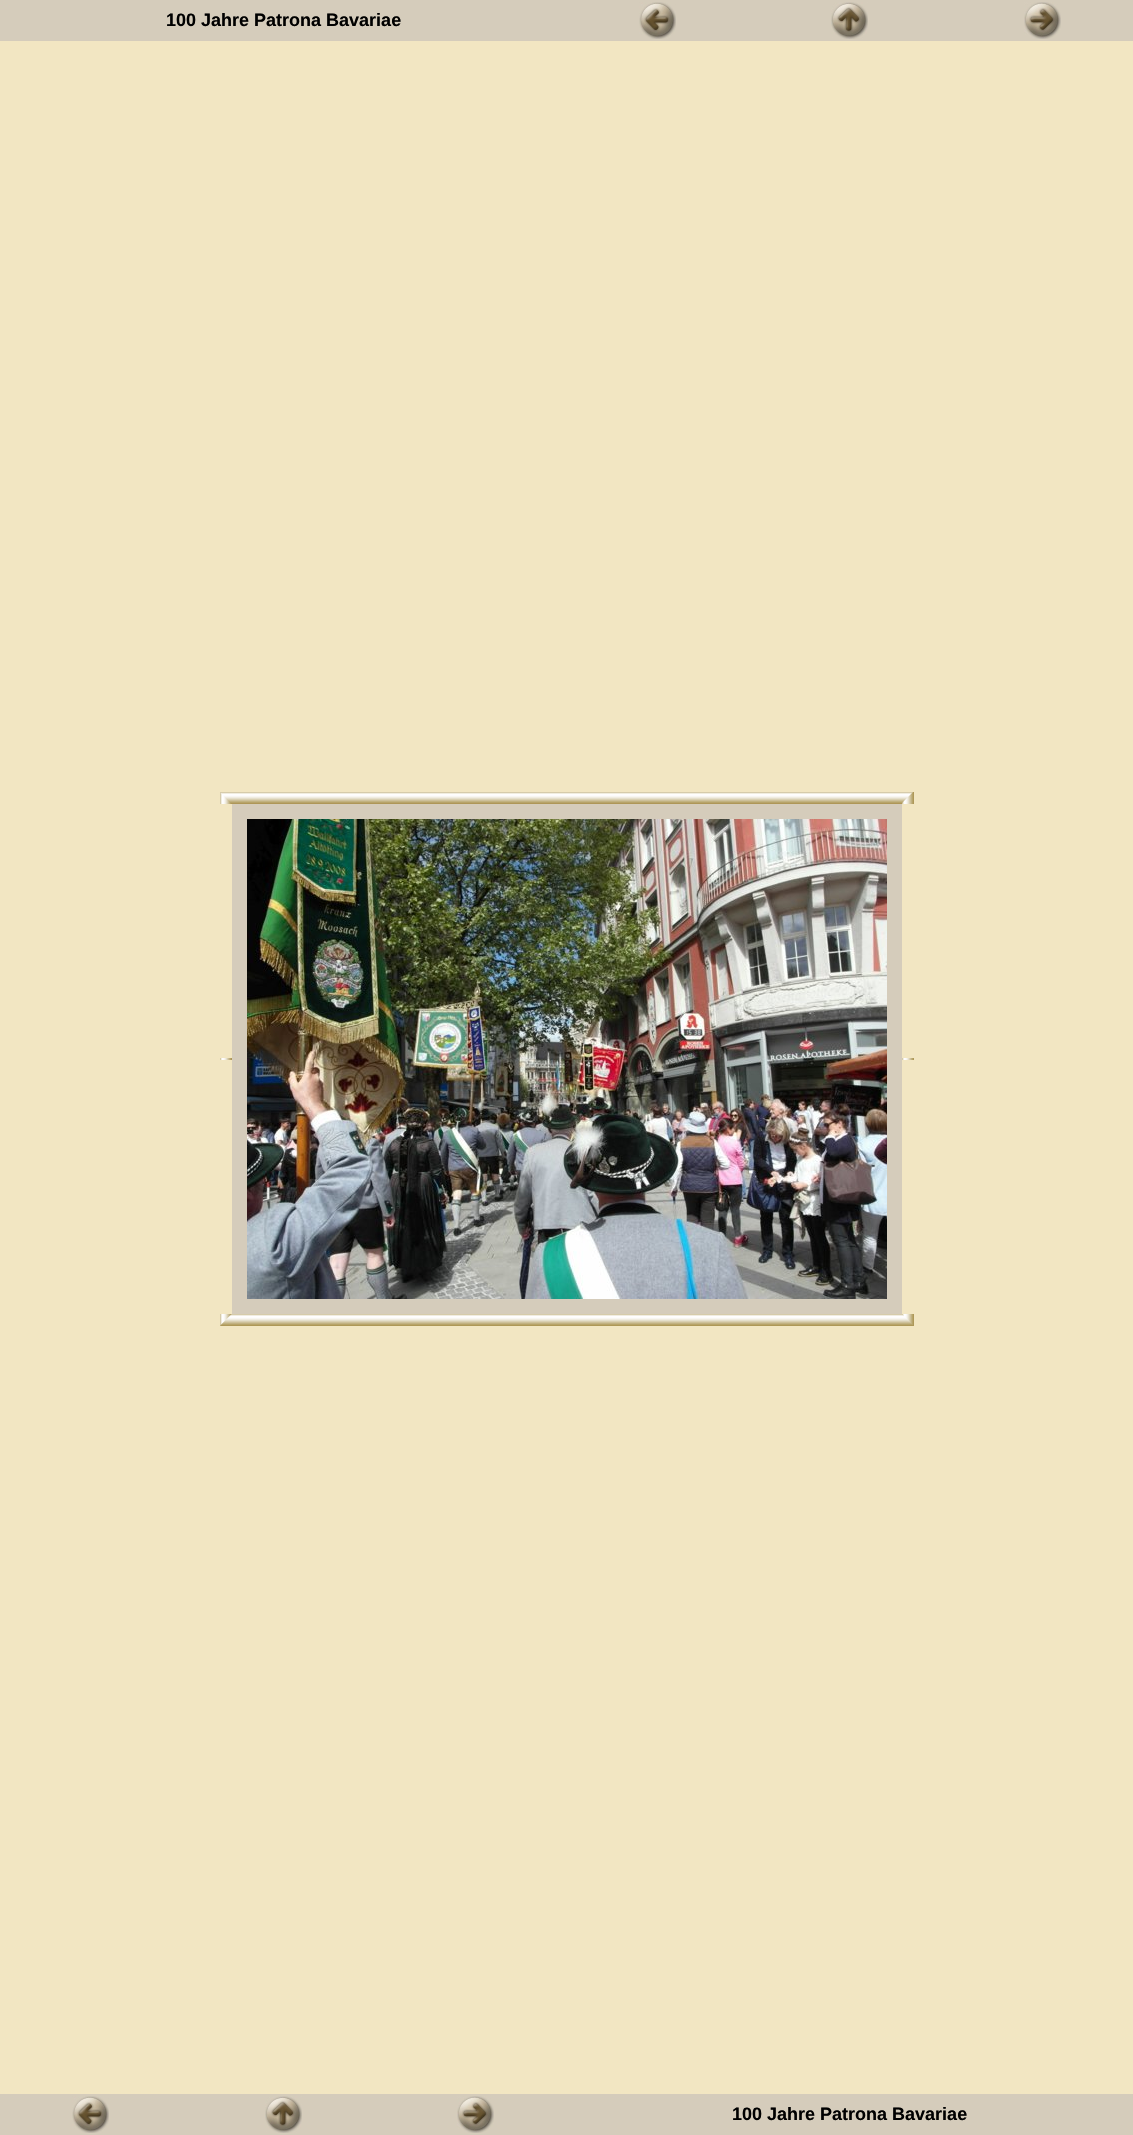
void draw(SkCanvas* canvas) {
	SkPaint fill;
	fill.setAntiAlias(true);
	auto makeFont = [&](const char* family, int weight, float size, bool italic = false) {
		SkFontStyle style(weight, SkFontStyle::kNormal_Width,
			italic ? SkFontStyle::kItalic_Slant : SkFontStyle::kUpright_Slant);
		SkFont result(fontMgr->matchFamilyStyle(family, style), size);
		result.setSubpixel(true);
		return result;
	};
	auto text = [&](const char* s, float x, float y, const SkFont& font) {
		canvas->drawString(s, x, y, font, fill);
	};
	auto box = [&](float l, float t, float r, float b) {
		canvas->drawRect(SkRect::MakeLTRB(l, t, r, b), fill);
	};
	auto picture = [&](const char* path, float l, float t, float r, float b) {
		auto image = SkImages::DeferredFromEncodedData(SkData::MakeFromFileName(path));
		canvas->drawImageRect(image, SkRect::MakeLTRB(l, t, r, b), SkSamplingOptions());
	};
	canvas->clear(0xFFF2E6C2);
	fill.setColor(0xFFD5CCBB);
	box(0, 0, 1133, 41);
	picture("image0.png", 639, 2, 676, 39);
	picture("image1.png", 831, 2, 868, 39);
	picture("image2.png", 1024, 2, 1061, 39);
	picture("image3.png", 220, 792, 232, 804);
	picture("image4.png", 232, 792, 902, 804);
	picture("image5.png", 902, 792, 914, 804);
	picture("image6.png", 220, 1058, 232, 1060);
	box(232, 804, 902, 1314);
	picture("image7.png", 247, 819, 887, 1299);
	picture("image8.png", 902, 1058, 914, 1060);
	picture("image9.png", 220, 1314, 232, 1326);
	picture("image10.png", 232, 1314, 902, 1326);
	picture("image11.png", 902, 1314, 914, 1326);
	box(0, 2094, 1133, 2135);
	picture("image0.png", 72, 2096, 109, 2133);
	picture("image1.png", 265, 2096, 302, 2133);
	picture("image2.png", 457, 2096, 494, 2133);
	auto font1 = makeFont("Liberation Sans", 700, 18);
	fill.setColor(0xFF000000);
	text("100 Jahre Patrona Bavariae", 166, 26, font1);
	text("100 Jahre Patrona Bavariae", 732, 2120, font1);
}
